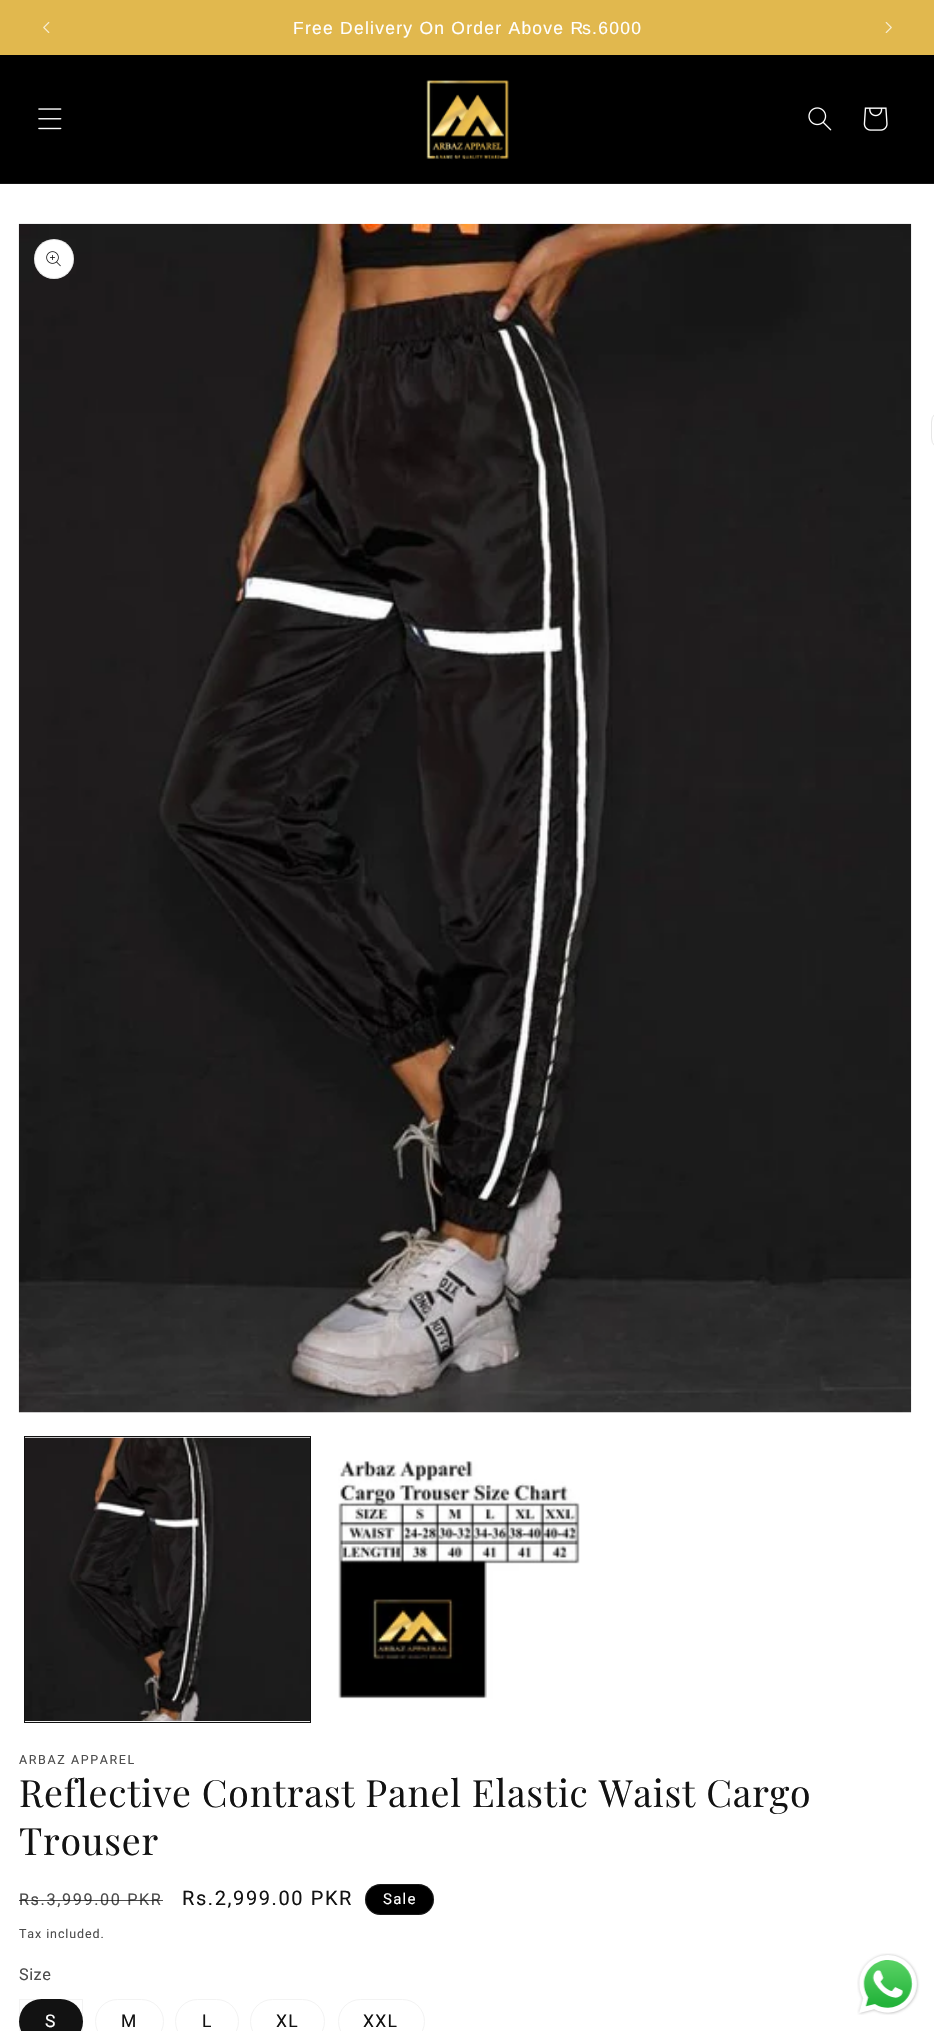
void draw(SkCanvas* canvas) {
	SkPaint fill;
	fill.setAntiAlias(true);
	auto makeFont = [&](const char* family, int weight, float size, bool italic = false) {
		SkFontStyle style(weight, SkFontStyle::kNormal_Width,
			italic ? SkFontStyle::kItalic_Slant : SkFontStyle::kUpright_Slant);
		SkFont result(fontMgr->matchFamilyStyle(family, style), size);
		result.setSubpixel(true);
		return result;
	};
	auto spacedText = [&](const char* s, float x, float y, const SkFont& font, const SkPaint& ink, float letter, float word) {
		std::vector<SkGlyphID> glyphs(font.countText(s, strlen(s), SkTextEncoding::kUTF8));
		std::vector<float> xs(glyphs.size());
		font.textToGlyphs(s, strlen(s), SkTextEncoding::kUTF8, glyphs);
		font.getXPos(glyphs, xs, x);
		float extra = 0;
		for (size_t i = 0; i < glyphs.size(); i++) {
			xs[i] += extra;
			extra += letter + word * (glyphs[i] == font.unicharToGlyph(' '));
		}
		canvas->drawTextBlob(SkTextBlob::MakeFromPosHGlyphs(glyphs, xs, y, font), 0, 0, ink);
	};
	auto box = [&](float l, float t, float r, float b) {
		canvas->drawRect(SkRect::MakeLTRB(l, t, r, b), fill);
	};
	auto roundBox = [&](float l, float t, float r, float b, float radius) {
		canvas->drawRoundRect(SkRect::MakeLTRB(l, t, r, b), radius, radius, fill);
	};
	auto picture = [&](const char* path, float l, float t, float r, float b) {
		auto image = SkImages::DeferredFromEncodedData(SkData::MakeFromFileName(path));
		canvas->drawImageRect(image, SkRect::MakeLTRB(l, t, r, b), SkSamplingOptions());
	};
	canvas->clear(0xFFFFFFFF);
	fill.setColor(0xFFE1B84E);
	box(0, 0, 934, 55);
	picture("image0.png", 43, 21, 50, 33);
	picture("image1.png", 885, 22, 892, 33);
	fill.setColor(0xFF000000);
	box(0, 55, 934, 183);
	fill.setColor(0xFF141414);
	box(0, 183, 934, 184);
	picture("image2.png", 38, 108, 62, 130);
	picture("image3.png", 426, 80, 509, 160);
	picture("image4.png", 808, 107, 832, 131);
	picture("image5.png", 863, 107, 888, 131);
	picture("image6.png", 18, 223, 912, 1413);
	fill.setColor(0xFFFFFFFF);
	canvas->drawCircle(54, 259, 20, fill);
	fill.setStyle(SkPaint::kStroke_Style);
	fill.setStrokeWidth(1);
	fill.setColor(0x1A121212);
	canvas->drawCircle(54, 259, 19.5f, fill);
	picture("image7.png", 46, 251, 61, 267);
	fill.setColor(0xFFE7E7E7);
	canvas->drawRoundRect(SkRect::MakeLTRB(931.5f, 410.5f, 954.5f, 449.5f), 19.5f, 19.5f, fill);
	fill.setColor(0xFF121212);
	canvas->drawRect(SkRect::MakeLTRB(24.5f, 1436.5f, 310.5f, 1722.5f), fill);
	picture("image8.png", 25, 1437, 310, 1722);
	picture("image9.png", 338, 1460, 580, 1699);
	fill.setStyle(SkPaint::kFill_Style);
	fill.setColor(0xFF000000);
	roundBox(365, 1884, 434, 1915, 15.5f);
	fill.setStyle(SkPaint::kStroke_Style);
	fill.setColor(0x1AFFFFFF);
	canvas->drawRoundRect(SkRect::MakeLTRB(365.5f, 1884.5f, 433.5f, 1914.5f), 15, 15, fill);
	fill.setStyle(SkPaint::kFill_Style);
	fill.setColor(0xFF121212);
	roundBox(19, 1999, 83, 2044, 22.5f);
	fill.setStyle(SkPaint::kStroke_Style);
	fill.setColor(0x0D121212);
	canvas->drawRect(SkRect::MakeLTRB(19.5f, 1999.5f, 82.5f, 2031.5f), fill);
	fill.setColor(0xFFF3F3F3);
	canvas->drawRoundRect(SkRect::MakeLTRB(95.5f, 1999.5f, 163.5f, 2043.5f), 22, 22, fill);
	canvas->drawRoundRect(SkRect::MakeLTRB(175.5f, 1999.5f, 238.5f, 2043.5f), 22, 22, fill);
	canvas->drawRoundRect(SkRect::MakeLTRB(250.5f, 1999.5f, 324.5f, 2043.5f), 22, 22, fill);
	canvas->drawRoundRect(SkRect::MakeLTRB(338.5f, 1999.5f, 424.5f, 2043.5f), 22, 22, fill);
	picture("image10.png", 857, 1953, 920, 2015);
	auto font1 = makeFont("Liberation Sans", 400, 17.5f);
	fill.setStyle(SkPaint::kFill_Style);
	fill.setColor(0xFFFFFFFF);
	spacedText("Free Delivery On Order Above ₨.6000", 293, 34, font1, fill, 1.25f, 0);
	auto font2 = makeFont("Roboto", 400, 12.5f);
	fill.setColor(0xFF4D4D4D);
	spacedText("ARBAZ APPAREL", 19, 1764, font2, fill, 1.6f, 0);
	auto font3 = makeFont("Playfair Display", 400, 37.5f);
	fill.setColor(0xFF121212);
	spacedText("Reflective Contrast Panel Elastic Waist Cargo", 19, 1807, font3, fill, 0.75f, 0);
	spacedText("Trouser", 19, 1855, font3, fill, 0.75f, 0);
	auto font4 = makeFont("Roboto", 400, 16.25f);
	fill.setColor(0xFF4D4D4D);
	spacedText("Rs.3,999.00 PKR", 19, 1905, font4, fill, 1.6f, 0);
	fill.setColor(0xBF121212);
	box(19, 1900, 163, 1901);
	auto font5 = makeFont("Roboto", 400, 20);
	fill.setColor(0xFF121212);
	spacedText("Rs.2,999.00 PKR", 182, 1905, font5, fill, 1.6f, 0);
	auto font6 = makeFont("Roboto", 400, 15);
	fill.setColor(0xFFFFFFFF);
	spacedText("Sale", 383, 1904, font6, fill, 1.25f, 0);
	fill.setColor(0xFF4D4D4D);
	spacedText("Tax included.", 19, 1938, font2, fill, 0.9f, 0);
	spacedText("Size", 19, 1980, font4, fill, 0.5f, 0);
	auto font7 = makeFont("Roboto", 400, 17.5f);
	fill.setColor(0xFFFFFFFF);
	spacedText("S", 45, 2027, font7, fill, 1.25f, 0);
	fill.setColor(0xFF121212);
	spacedText("M", 121, 2027, font7, fill, 1.25f, 0);
	spacedText("L", 202, 2027, font7, fill, 1.25f, 0);
	spacedText("XL", 276, 2027, font7, fill, 1.25f, 0);
	spacedText("XXL", 363, 2027, font7, fill, 1.25f, 0);
}
